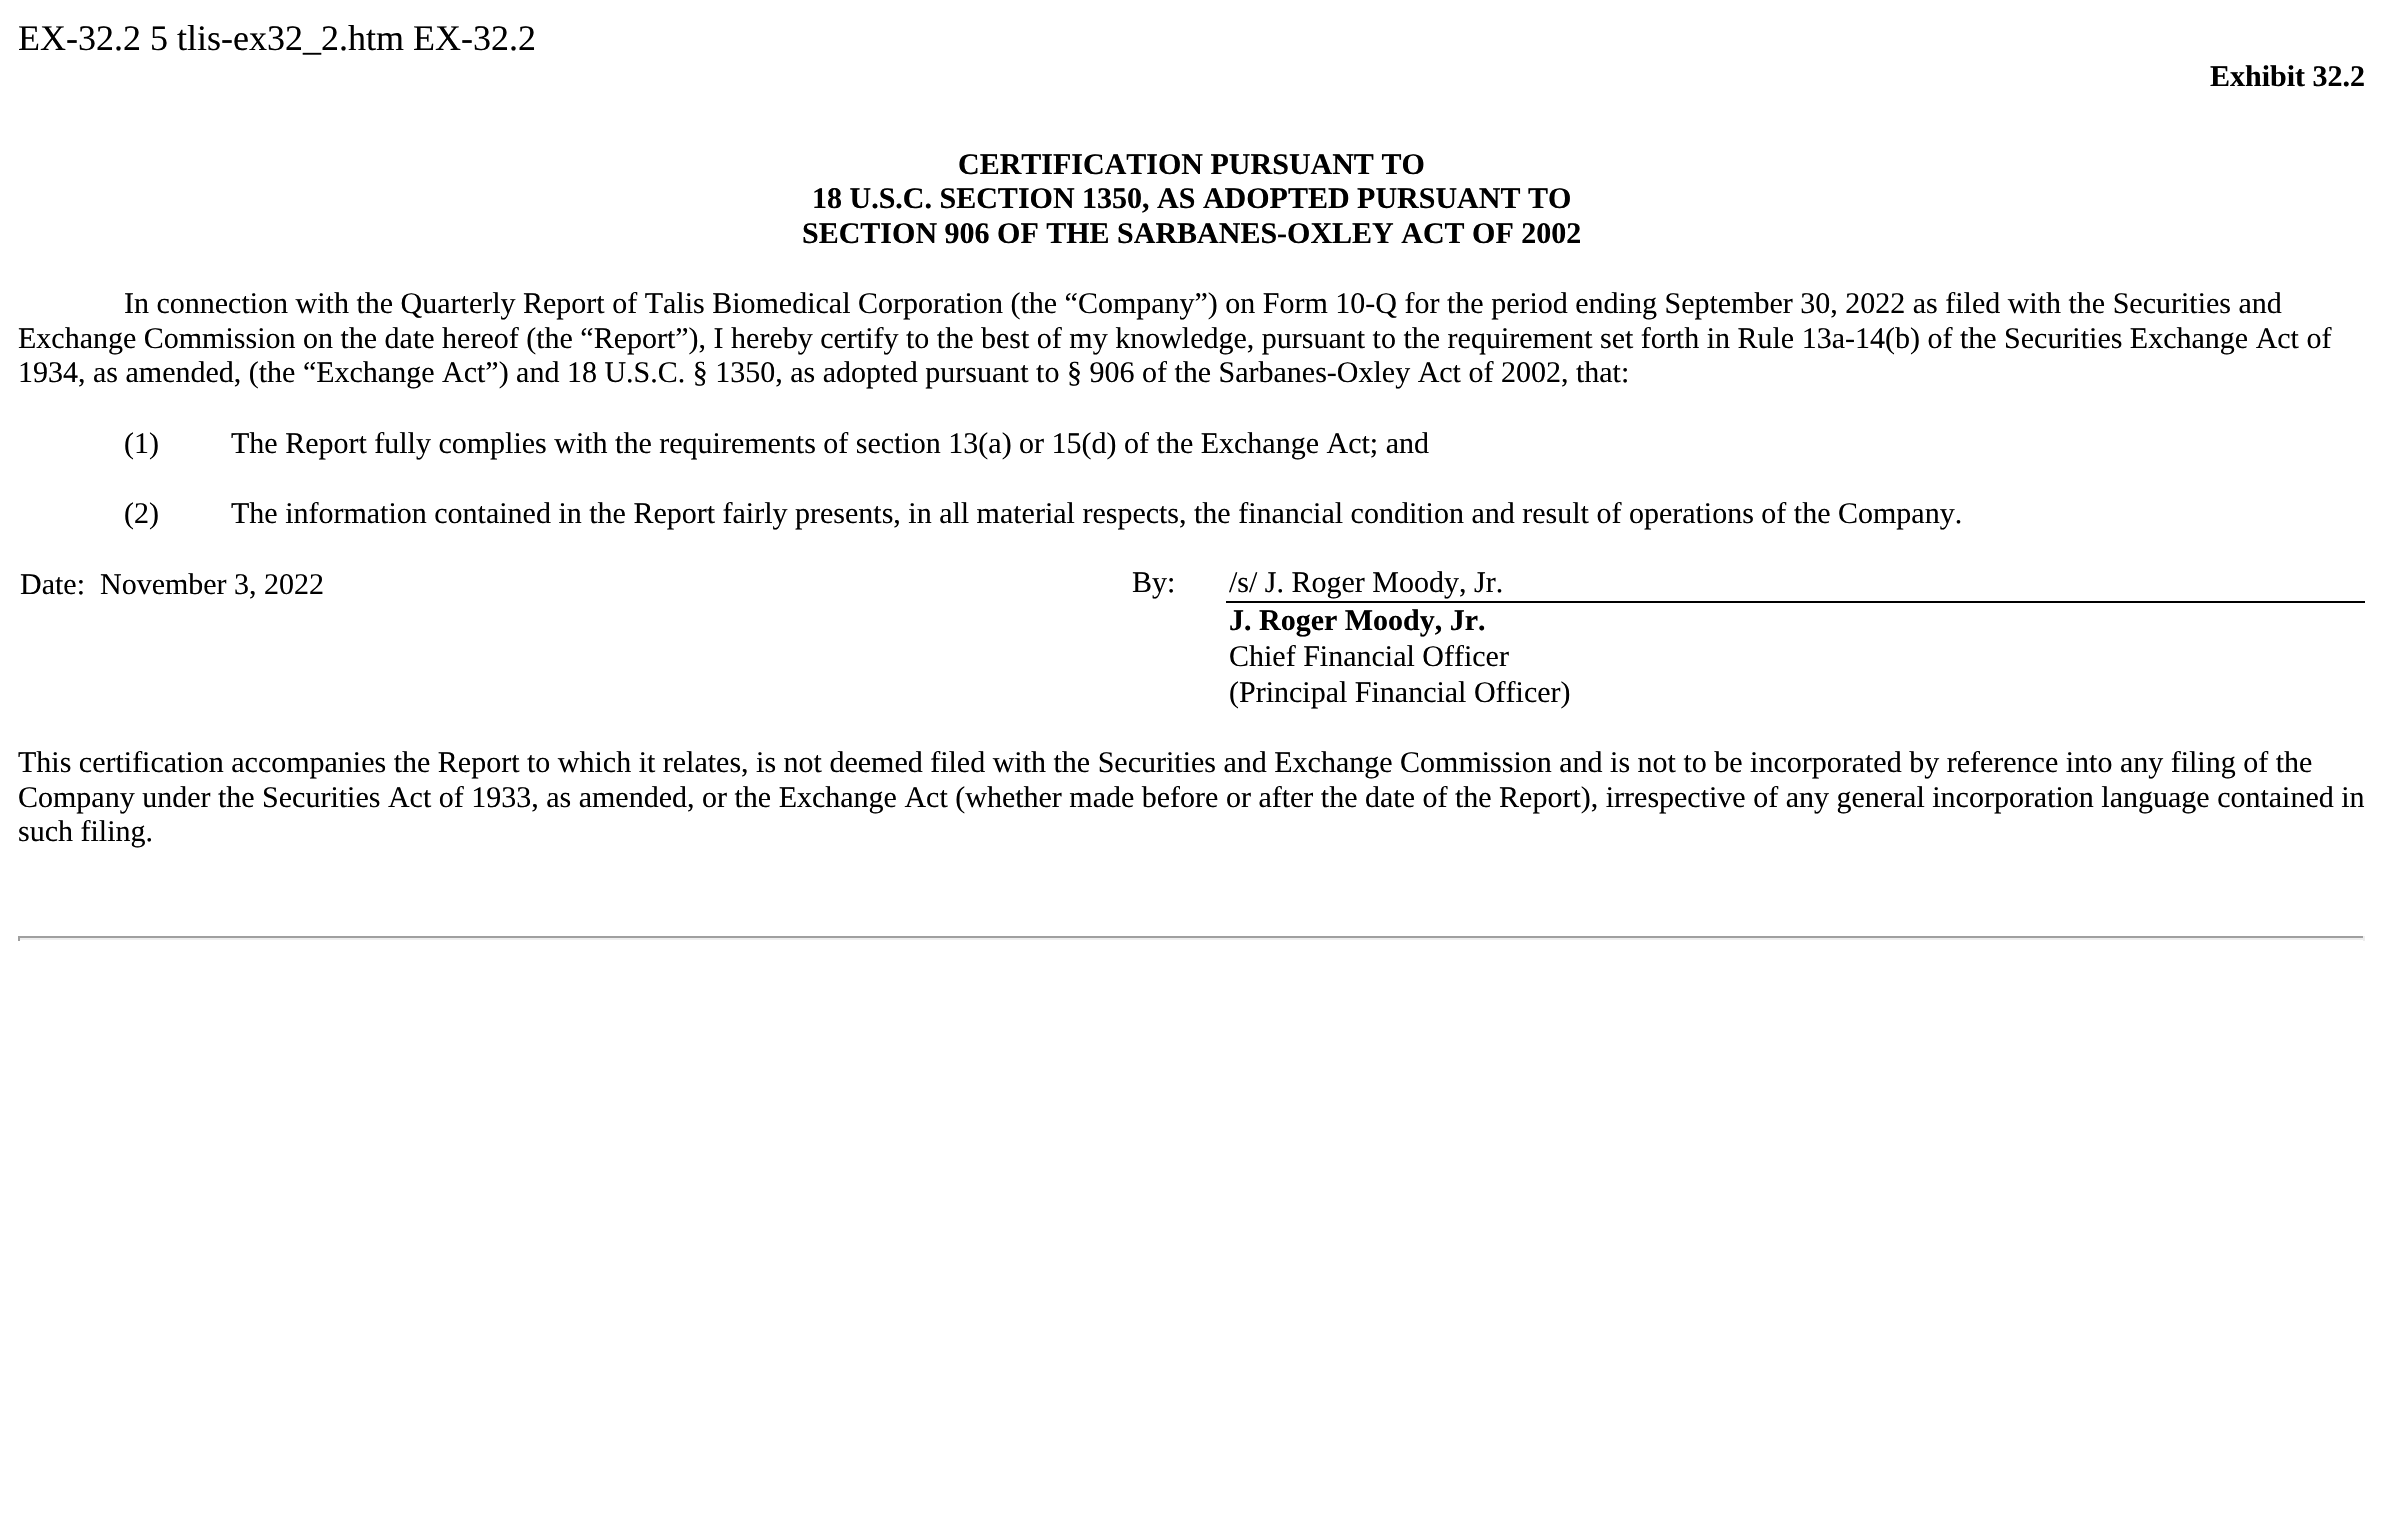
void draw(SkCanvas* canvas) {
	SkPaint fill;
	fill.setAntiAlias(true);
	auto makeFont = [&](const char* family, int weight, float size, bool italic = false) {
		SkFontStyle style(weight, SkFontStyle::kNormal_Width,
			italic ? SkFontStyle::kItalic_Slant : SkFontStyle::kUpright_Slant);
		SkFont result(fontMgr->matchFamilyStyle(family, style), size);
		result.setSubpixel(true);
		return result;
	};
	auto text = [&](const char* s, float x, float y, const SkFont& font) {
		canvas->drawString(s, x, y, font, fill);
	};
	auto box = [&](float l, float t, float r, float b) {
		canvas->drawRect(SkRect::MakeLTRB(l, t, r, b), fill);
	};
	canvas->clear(0xFFFFFFFF);
	fill.setColor(0xFF000000);
	box(1226, 601, 2365, 603);
	fill.setColor(0xFF9F9F9F);
	box(18, 936, 2365, 938);
	fill.setColor(0xFFEEEEEE);
	box(2363, 936, 2365, 941);
	box(18, 938, 2365, 940);
	fill.setColor(0xFF9F9F9F);
	box(18, 936, 20, 941);
	auto font1 = makeFont("Liberation Serif", 400, 36);
	fill.setColor(0xFF000000);
	text("EX-32.2 5 tlis-ex32_2.htm EX-32.2", 18, 50, font1);
	auto font2 = makeFont("Liberation Serif", 700, 30);
	text("Exhibit 32.2", 2210, 86, font2);
	text("CERTIFICATION PURSUANT TO", 958, 174, font2);
	text("18 U.S.C. SECTION 1350, AS ADOPTED PURSUANT TO", 812, 208, font2);
	text("SECTION 906 OF THE SARBANES-OXLEY ACT OF 2002", 802, 243, font2);
	auto font3 = makeFont("Liberation Serif", 400, 30);
	text("In connection with the Quarterly Report of Talis Biomedical Corporation (the “Company”) on Form 10-Q for the period ending September 30, 2022 as filed with the Securities and", 124, 313, font3);
	text("Exchange Commission on the date hereof (the “Report”), I hereby certify to the best of my knowledge, pursuant to the requirement set forth in Rule 13a-14(b) of the Securities Exchange Act of", 18, 348, font3);
	text("1934, as amended, (the “Exchange Act”) and 18 U.S.C. § 1350, as adopted pursuant to § 906 of the Sarbanes-Oxley Act of 2002, that:", 18, 382, font3);
	text("(1)", 124, 453, font3);
	text("The Report fully complies with the requirements of section 13(a) or 15(d) of the Exchange Act; and", 231, 453, font3);
	text("(2)", 124, 523, font3);
	text("The information contained in the Report fairly presents, in all material respects, the financial condition and result of operations of the Company.", 231, 523, font3);
	text("Date:  November 3, 2022", 20, 594, font3);
	text("By:", 1132, 592, font3);
	text("/s/ J. Roger Moody, Jr.", 1229, 592, font3);
	text("J. Roger Moody, Jr.", 1229, 630, font2);
	text("Chief Financial Officer", 1229, 666, font3);
	text("(Principal Financial Officer)", 1229, 702, font3);
	text("This certification accompanies the Report to which it relates, is not deemed filed with the Securities and Exchange Commission and is not to be incorporated by reference into any filing of the", 18, 772, font3);
	text("Company under the Securities Act of 1933, as amended, or the Exchange Act (whether made before or after the date of the Report), irrespective of any general incorporation language contained in", 18, 807, font3);
	text("such filing.", 18, 841, font3);
}
